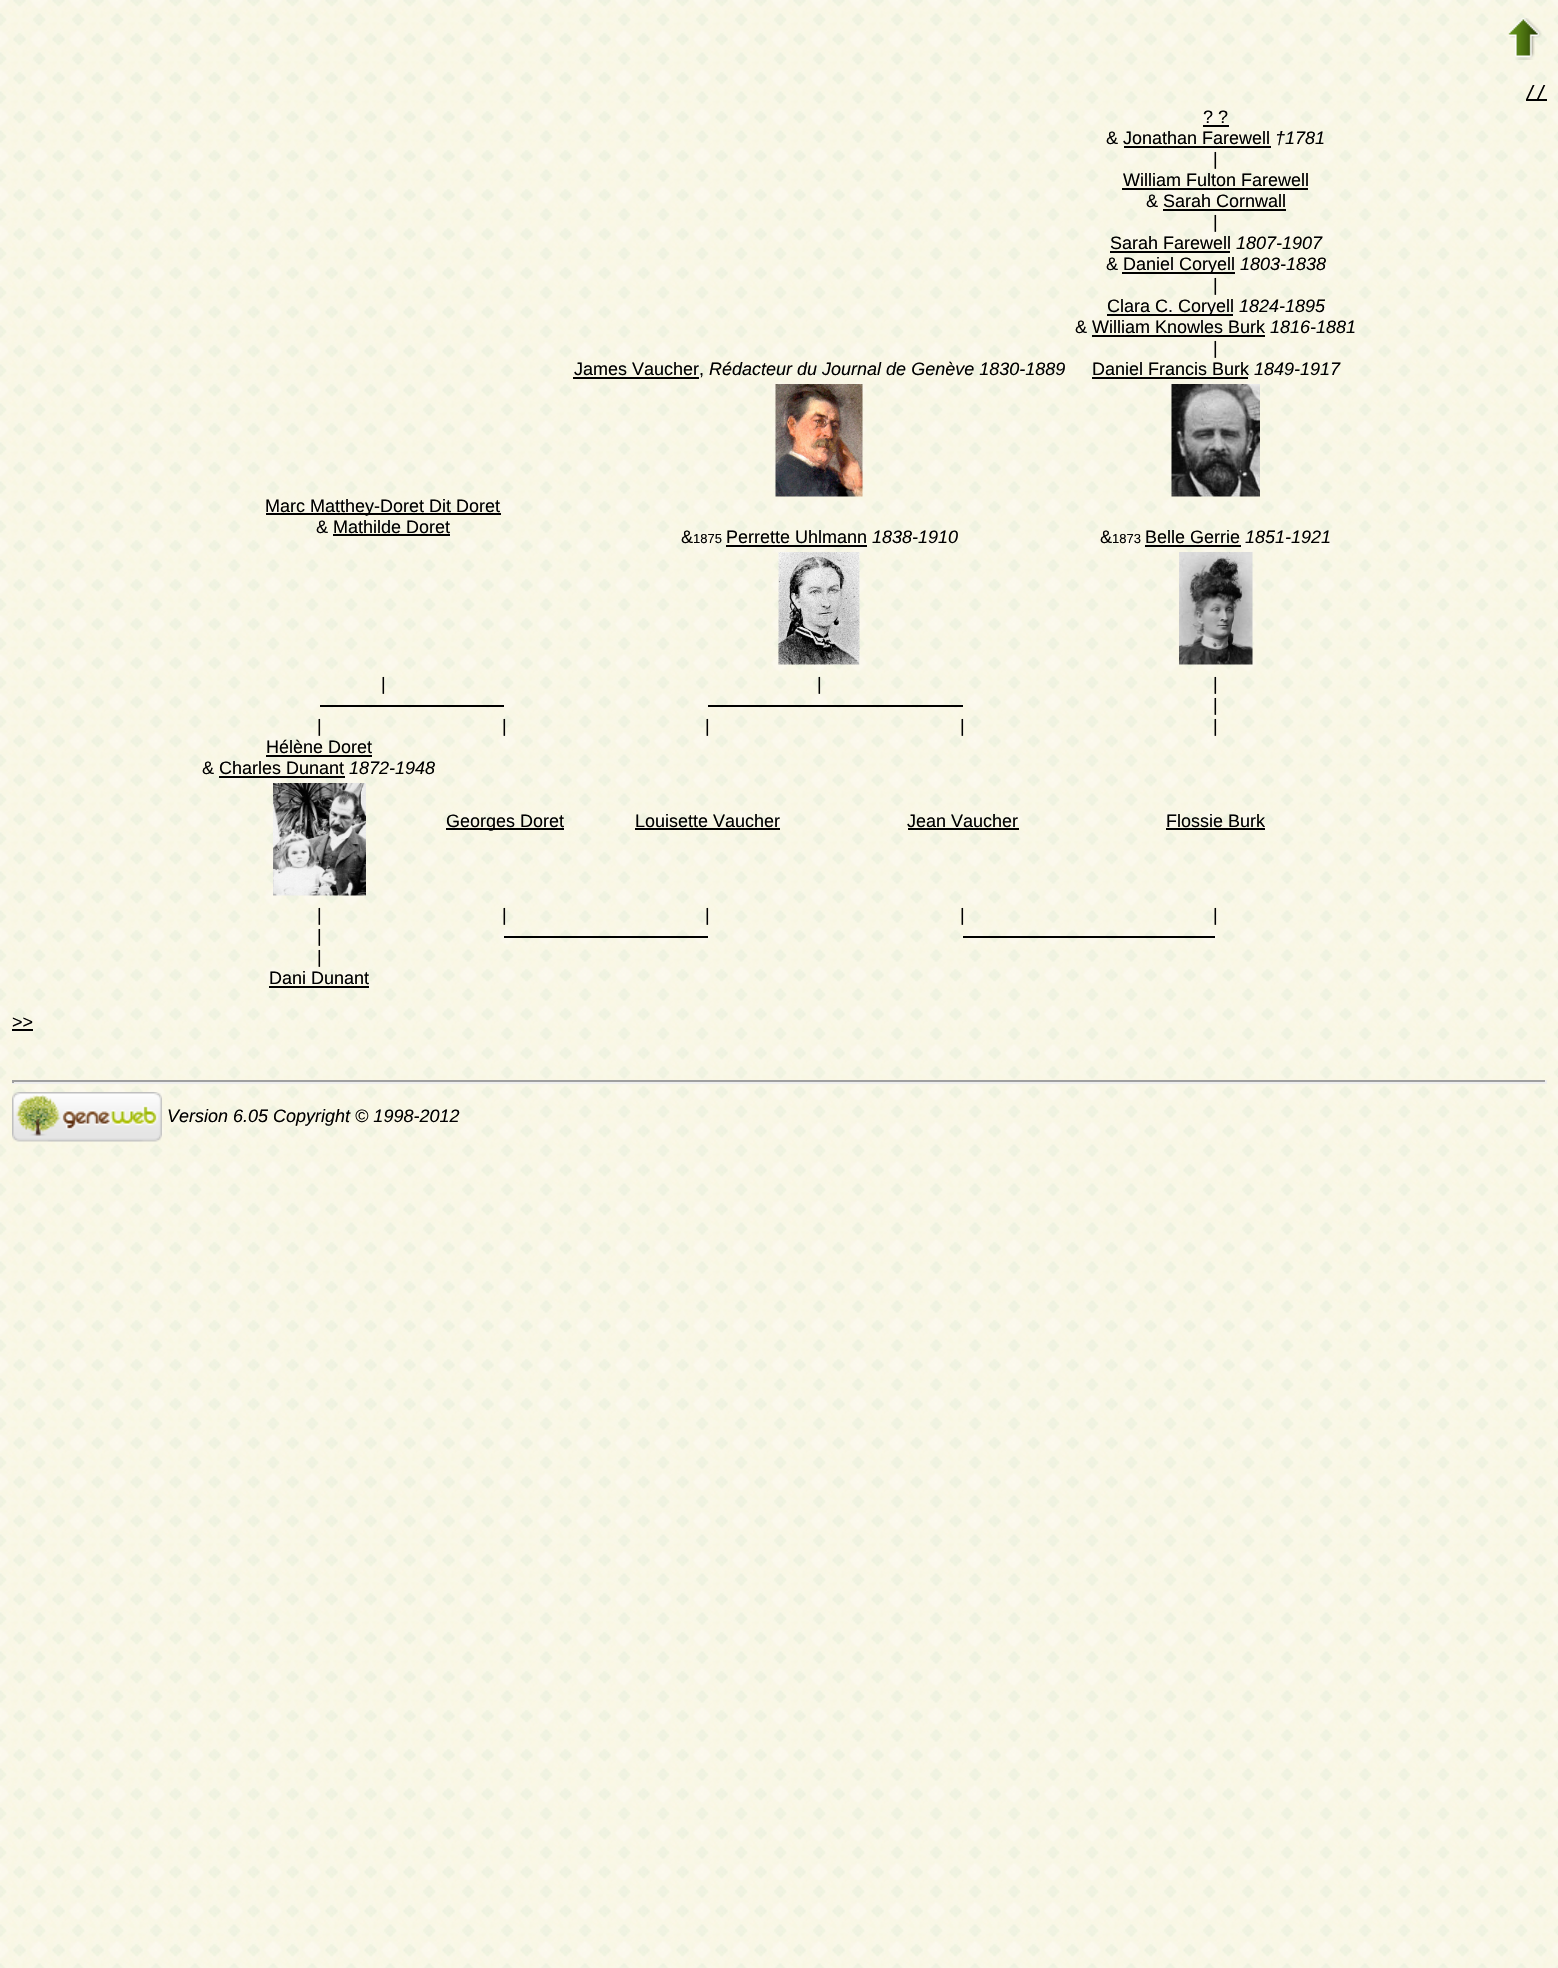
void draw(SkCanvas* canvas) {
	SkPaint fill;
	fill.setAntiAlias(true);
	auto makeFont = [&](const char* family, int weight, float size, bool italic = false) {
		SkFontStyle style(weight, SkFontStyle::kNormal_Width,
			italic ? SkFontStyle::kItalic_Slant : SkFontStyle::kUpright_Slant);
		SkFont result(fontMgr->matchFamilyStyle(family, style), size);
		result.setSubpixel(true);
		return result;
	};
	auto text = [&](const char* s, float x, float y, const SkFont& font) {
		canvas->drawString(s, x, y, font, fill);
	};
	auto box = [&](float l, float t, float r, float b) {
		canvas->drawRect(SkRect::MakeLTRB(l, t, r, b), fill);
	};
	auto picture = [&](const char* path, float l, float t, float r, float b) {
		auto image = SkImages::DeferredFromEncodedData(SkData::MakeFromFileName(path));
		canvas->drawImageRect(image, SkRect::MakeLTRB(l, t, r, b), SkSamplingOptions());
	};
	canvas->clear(0xFFFFFFFF);
	picture("image0.png", 0, 0, 1558, 1968);
	picture("image1.png", 1508, 18, 1542, 60);
	fill.setColor(0xFF000000);
	box(1526, 99, 1547, 101);
	box(1203, 125, 1229, 127);
	box(1124, 146, 1271, 148);
	box(1122, 188, 1308, 190);
	box(1163, 209, 1286, 211);
	box(1110, 251, 1230, 253);
	box(1122, 272, 1235, 274);
	box(1107, 314, 1233, 316);
	box(1092, 335, 1265, 337);
	box(266, 513, 501, 515);
	box(333, 534, 450, 536);
	box(573, 377, 699, 379);
	picture("image2.png", 775, 384, 863, 497);
	box(726, 545, 867, 547);
	picture("image3.png", 778, 552, 860, 665);
	box(1092, 377, 1248, 379);
	picture("image4.png", 1171, 384, 1260, 497);
	box(1145, 545, 1241, 547);
	picture("image5.png", 1179, 552, 1253, 665);
	box(320, 705, 504, 707);
	box(708, 705, 963, 707);
	box(266, 755, 372, 757);
	box(219, 776, 345, 778);
	picture("image6.png", 273, 783, 366, 896);
	box(446, 828, 564, 830);
	box(635, 828, 780, 830);
	box(908, 828, 1019, 830);
	box(1166, 828, 1265, 830);
	box(504, 936, 708, 938);
	box(963, 936, 1215, 938);
	box(269, 986, 369, 988);
	box(12, 1029, 33, 1031);
	fill.setColor(0xFF9F9F9F);
	box(12, 1080, 1547, 1082);
	fill.setColor(0xFFEEEEEE);
	box(1545, 1080, 1547, 1083);
	box(12, 1082, 1547, 1084);
	fill.setColor(0xFF9F9F9F);
	box(12, 1080, 14, 1083);
	picture("image7.png", 12, 1092, 162, 1142);
	auto font1 = makeFont("DejaVu Sans Mono", 400, 18);
	fill.setColor(0xFF000000);
	text("//", 1525, 98, font1);
	auto font2 = makeFont("Liberation Sans", 400, 18);
	text("? ?", 1203, 123, font2);
	text("& Jonathan Farewell", 1106, 144, font2);
	auto font3 = makeFont("Liberation Sans", 400, 18, true);
	text("†1781", 1275, 144, font3);
	text("|", 1213, 165, font2);
	text("William Fulton Farewell", 1123, 186, font2);
	text("& Sarah Cornwall", 1146, 207, font2);
	text("|", 1213, 228, font2);
	text("Sarah Farewell", 1110, 249, font2);
	text("1807-1907", 1236, 249, font3);
	text("&", 1106, 270, font2);
	text("Daniel Coryell", 1123, 270, font2);
	text("1803-1838", 1240, 270, font3);
	text("|", 1213, 291, font2);
	text("Clara C. Coryell", 1107, 312, font2);
	text("1824-1895", 1239, 312, font3);
	text("& William Knowles Burk", 1075, 333, font2);
	text("1816-1881", 1270, 333, font3);
	text("|", 1213, 354, font2);
	text("Marc Matthey-Doret Dit Doret", 265, 512, font2);
	text("& Mathilde Doret", 316, 533, font2);
	text("James Vaucher,", 574, 375, font2);
	text("Rédacteur du Journal de Genève 1830-1889", 709, 375, font3);
	text("&", 681, 543, font2);
	auto font4 = makeFont("Liberation Sans", 400, 13);
	text("1875", 693, 543, font4);
	text("Perrette Uhlmann", 726, 543, font2);
	text("1838-1910", 872, 543, font3);
	text("Daniel Francis Burk", 1092, 375, font2);
	text("1849-1917", 1254, 375, font3);
	text("&", 1100, 543, font2);
	text("1873", 1112, 543, font4);
	text("Belle Gerrie", 1145, 543, font2);
	text("1851-1921", 1245, 543, font3);
	text("|", 381, 690, font2);
	text("|", 817, 690, font2);
	text("|", 1213, 690, font2);
	text("|", 1213, 711, font2);
	text("|", 317, 732, font2);
	text("|", 502, 732, font2);
	text("|", 705, 732, font2);
	text("|", 960, 732, font2);
	text("|", 1213, 732, font2);
	text("Hélène Doret", 266, 753, font2);
	text("& Charles Dunant", 202, 774, font2);
	text("1872-1948", 349, 774, font3);
	text("Georges Doret", 446, 827, font2);
	text("Louisette Vaucher", 635, 827, font2);
	text("Jean Vaucher", 907, 827, font2);
	text("Flossie Burk", 1166, 827, font2);
	text("|", 317, 921, font2);
	text("|", 502, 921, font2);
	text("|", 705, 921, font2);
	text("|", 960, 921, font2);
	text("|", 1213, 921, font2);
	text("|", 317, 942, font2);
	text("|", 317, 963, font2);
	text("Dani Dunant", 269, 984, font2);
	text(">>", 12, 1028, font2);
	text("Version 6.05 Copyright © 1998-2012", 167, 1122, font3);
}
